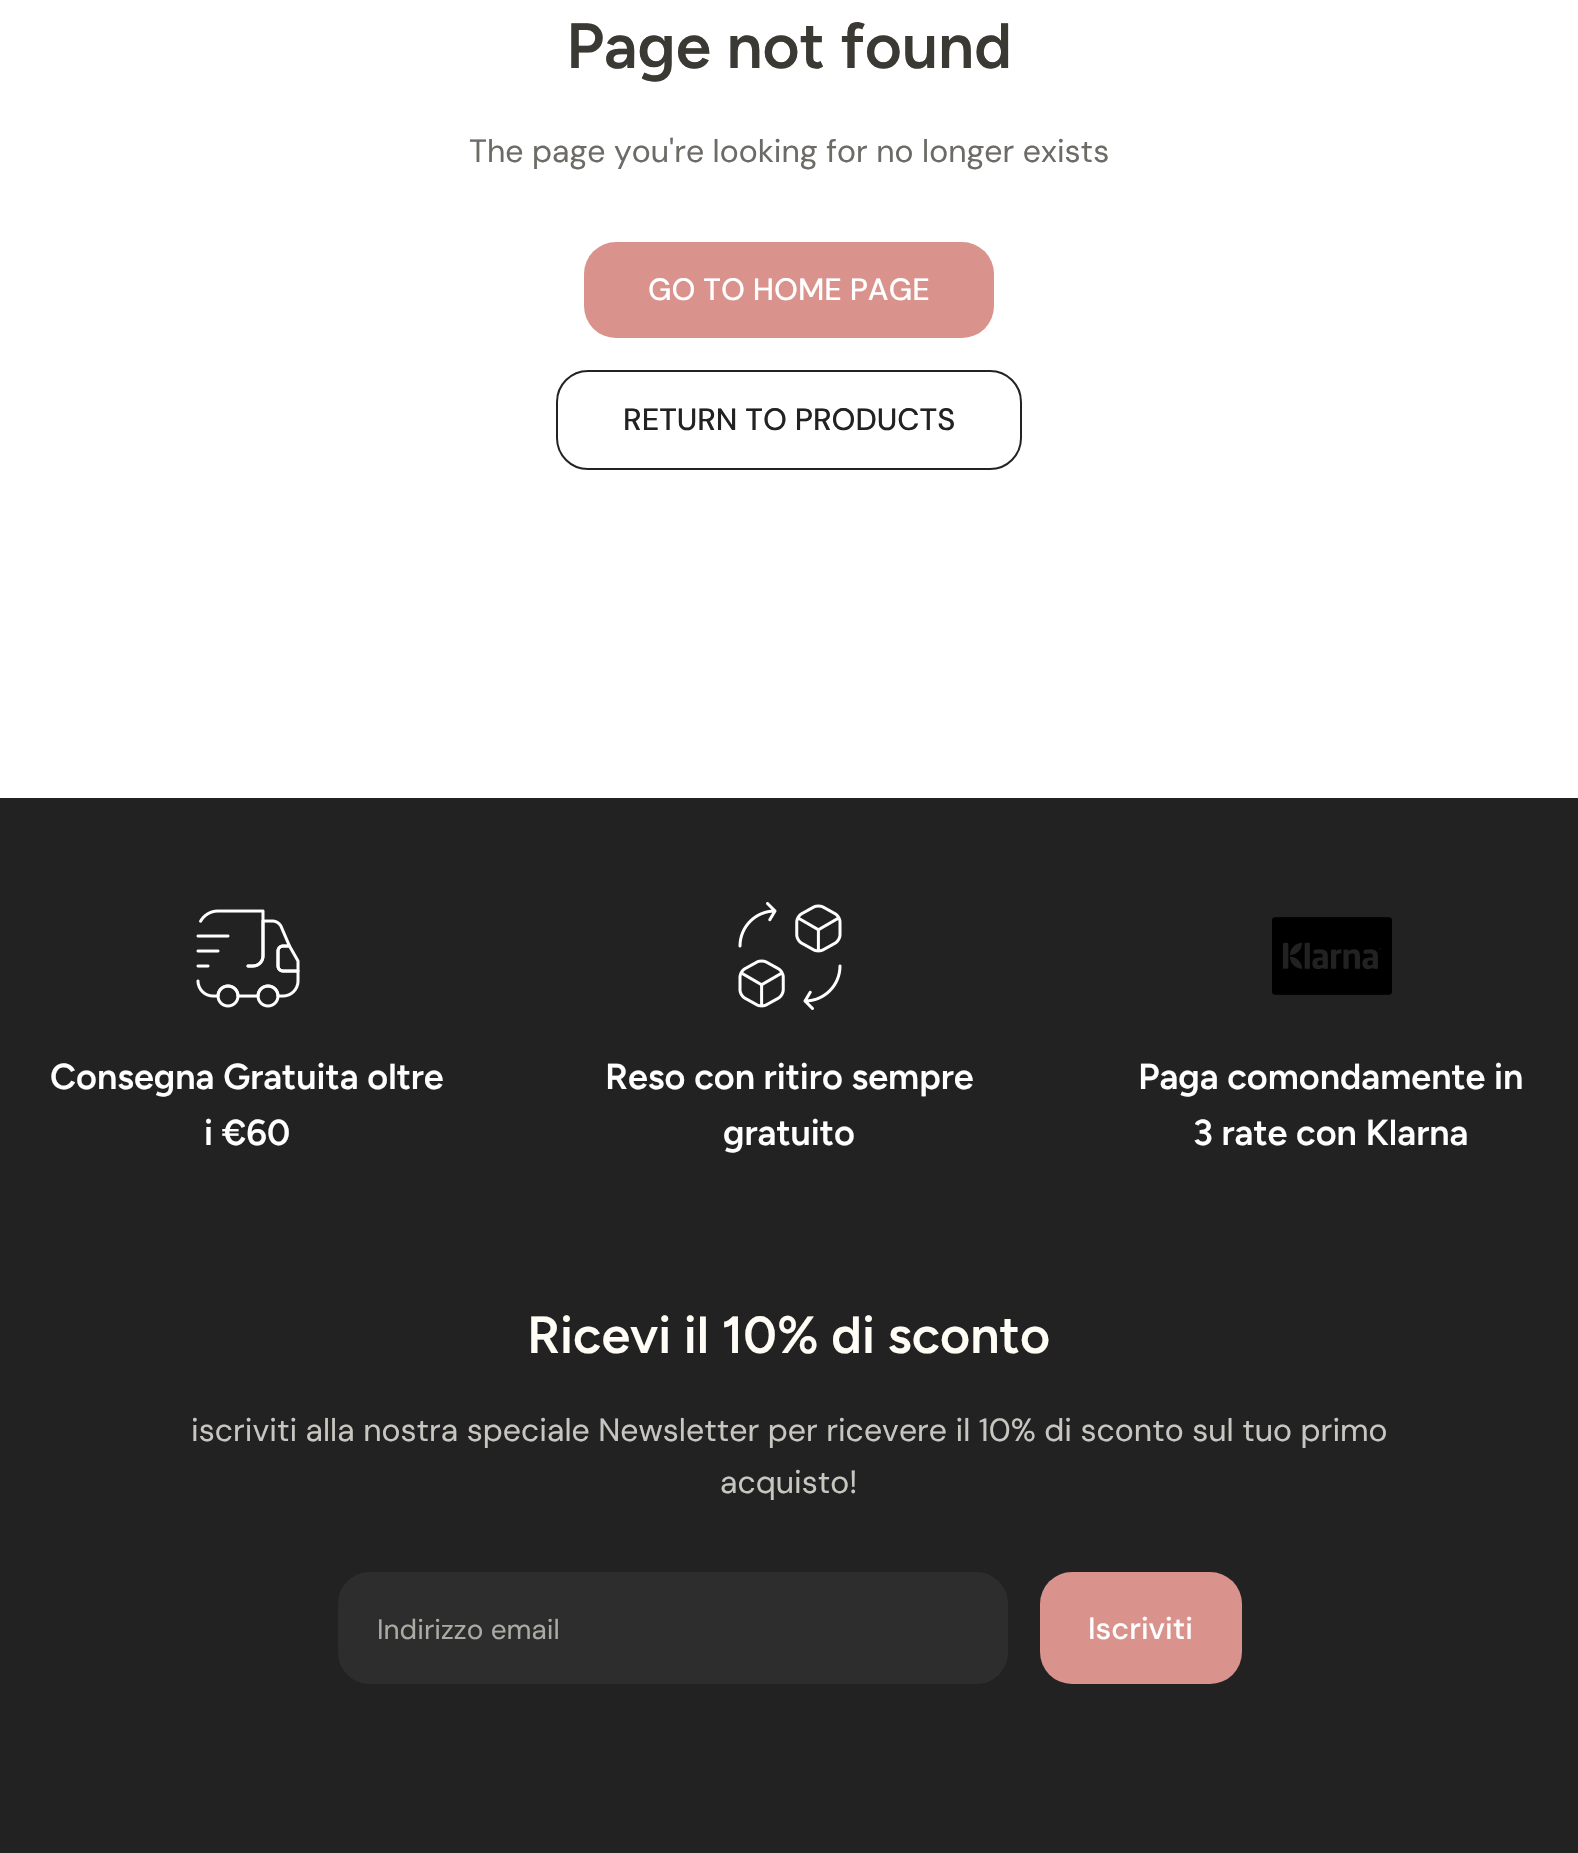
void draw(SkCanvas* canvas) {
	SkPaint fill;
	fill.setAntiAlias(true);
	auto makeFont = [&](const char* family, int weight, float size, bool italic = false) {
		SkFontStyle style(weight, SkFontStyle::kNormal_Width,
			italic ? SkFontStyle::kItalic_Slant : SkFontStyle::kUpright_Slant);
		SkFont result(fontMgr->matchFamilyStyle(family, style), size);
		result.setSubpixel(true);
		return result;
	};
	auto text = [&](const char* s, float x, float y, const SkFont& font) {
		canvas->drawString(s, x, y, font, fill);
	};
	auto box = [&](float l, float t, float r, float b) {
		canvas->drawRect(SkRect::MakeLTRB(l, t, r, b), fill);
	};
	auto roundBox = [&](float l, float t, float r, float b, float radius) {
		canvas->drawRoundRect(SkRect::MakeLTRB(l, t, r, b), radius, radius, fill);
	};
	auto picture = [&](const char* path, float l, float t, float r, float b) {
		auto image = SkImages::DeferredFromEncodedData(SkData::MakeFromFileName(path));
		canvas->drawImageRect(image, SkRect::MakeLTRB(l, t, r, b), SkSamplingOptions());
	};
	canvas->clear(0xFFFFFFFF);
	fill.setColor(0xFFD9928C);
	roundBox(584, 242, 994, 338, 32);
	fill.setStyle(SkPaint::kStroke_Style);
	fill.setStrokeWidth(2);
	fill.setColor(0xFF222222);
	canvas->drawRoundRect(SkRect::MakeLTRB(557, 371, 1021, 469), 31, 31, fill);
	fill.setStyle(SkPaint::kFill_Style);
	box(0, 798, 1578, 1760);
	picture("image0.png", 196, 909, 300, 1008);
	picture("image1.png", 738, 902, 842, 1010);
	picture("image2.png", 1272, 917, 1392, 995);
	fill.setColor(0xFF2D2D2D);
	canvas->drawRoundRect(SkRect::MakeLTRB(339, 1573, 1007, 1683), 31, 31, fill);
	fill.setStyle(SkPaint::kStroke_Style);
	canvas->drawRoundRect(SkRect::MakeLTRB(339, 1573, 1007, 1683), 31, 31, fill);
	fill.setStyle(SkPaint::kFill_Style);
	fill.setColor(0xFFD9928C);
	roundBox(1040, 1572, 1242, 1684, 32);
	fill.setColor(0xFF222222);
	box(0, 1760, 1578, 1853);
	auto font1 = makeFont("Figtree", 600, 64);
	fill.setColor(0xFF3B3933);
	text("Page not found", 566, 68, font1);
	auto font2 = makeFont("DM Sans", 400, 32);
	fill.setColor(0xFF6C6B66);
	text("The page you're looking for no longer exists", 469, 162, font2);
	auto font3 = makeFont("DM Sans", 500, 30.75f);
	fill.setColor(0xFFFFFFFF);
	text("GO TO HOME PAGE", 648, 300, font3);
	fill.setColor(0xFF222222);
	text("RETURN TO PRODUCTS", 623, 430, font3);
	auto font4 = makeFont("Figtree", 600, 36);
	fill.setColor(0xFFFFFFFF);
	text("Consegna Gratuita oltre", 50, 1089, font4);
	text("i €60", 204, 1145, font4);
	text("Reso con ritiro sempre", 605, 1089, font4);
	text("gratuito", 723, 1145, font4);
	text("Paga comondamente in", 1138, 1089, font4);
	text("3 rate con Klarna", 1193, 1145, font4);
	auto font5 = makeFont("Figtree", 600, 52);
	fill.setColor(0xFFFFFDF5);
	text("Ricevi il 10% di sconto", 527, 1353, font5);
	fill.setColor(0xFFC8C6C0);
	text("iscriviti alla nostra speciale Newsletter per ricevere il 10% di sconto sul tuo primo", 191, 1441, font2);
	text("acquisto!", 720, 1493, font2);
	auto font6 = makeFont("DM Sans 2", 400, 28);
	fill.setColor(0xFFABAAA5);
	text("Indirizzo email", 377, 1639, font6);
	fill.setColor(0xFFFFFFFF);
	text("Iscriviti", 1088, 1639, font3);
}
